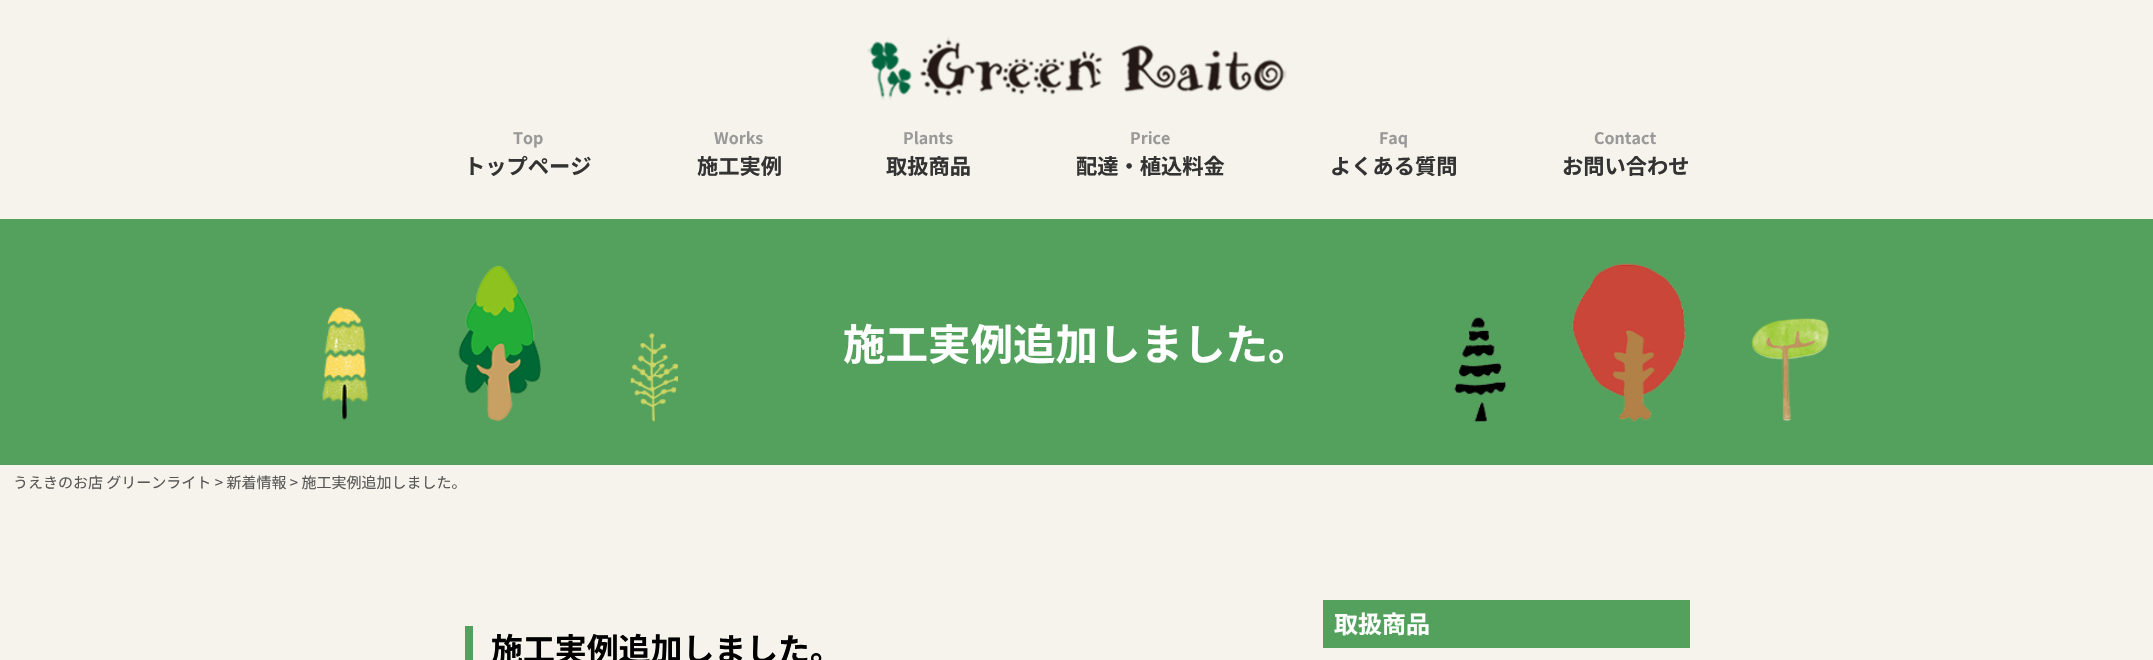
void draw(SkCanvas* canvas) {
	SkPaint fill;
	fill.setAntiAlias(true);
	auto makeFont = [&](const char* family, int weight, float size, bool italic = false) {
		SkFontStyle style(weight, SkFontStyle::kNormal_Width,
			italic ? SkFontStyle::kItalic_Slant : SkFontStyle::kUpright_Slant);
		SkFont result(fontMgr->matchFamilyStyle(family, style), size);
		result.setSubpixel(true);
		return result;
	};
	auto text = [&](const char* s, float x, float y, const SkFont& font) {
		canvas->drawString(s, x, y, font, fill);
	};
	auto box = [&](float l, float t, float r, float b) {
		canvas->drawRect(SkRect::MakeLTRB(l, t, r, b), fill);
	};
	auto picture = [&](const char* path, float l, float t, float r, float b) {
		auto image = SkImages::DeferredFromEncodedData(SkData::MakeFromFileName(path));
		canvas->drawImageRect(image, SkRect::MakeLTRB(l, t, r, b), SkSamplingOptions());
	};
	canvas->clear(0xFFF5F3EB);
	picture("image0.png", 867, 37, 1287, 100);
	fill.setColor(0xFF53A15C);
	box(0, 219, 2153, 465);
	picture("image1.png", 322, 263, 1829, 422);
	box(1323, 600, 1690, 648);
	box(465, 626, 473, 660);
	auto font1 = makeFont("Noto Sans JP", 700, 16);
	fill.setColor(0xFF999999);
	text("Top", 513, 144, font1);
	auto font2 = makeFont("Noto Sans JP", 700, 21.25f);
	fill.setColor(0xFF333333);
	text("トップページ", 464, 174, font2);
	fill.setColor(0xFF999999);
	text("Works", 714, 144, font1);
	fill.setColor(0xFF333333);
	text("施工実例", 697, 174, font2);
	fill.setColor(0xFF999999);
	text("Plants", 903, 144, font1);
	fill.setColor(0xFF333333);
	text("取扱商品", 886, 174, font2);
	fill.setColor(0xFF999999);
	text("Price", 1130, 144, font1);
	fill.setColor(0xFF333333);
	text("配達・植込料金", 1076, 174, font2);
	fill.setColor(0xFF999999);
	text("Faq", 1379, 144, font1);
	fill.setColor(0xFF333333);
	text("よくある質問", 1330, 174, font2);
	fill.setColor(0xFF999999);
	text("Contact", 1594, 144, font1);
	fill.setColor(0xFF333333);
	text("お問い合わせ", 1562, 174, font2);
	auto font3 = makeFont("Noto Sans JP", 700, 42.5f);
	fill.setColor(0xFFFFFFFF);
	text("施工実例追加しました。", 843, 360, font3);
	auto font4 = makeFont("Noto Sans JP", 400, 15);
	fill.setColor(0xFF565656);
	text("うえきのお店 グリーンライト > 新着情報 > 施工実例追加しました。", 13, 488, font4);
	auto font5 = makeFont("Noto Sans JP", 700, 24);
	fill.setColor(0xFFFFFFFF);
	text("取扱商品", 1334, 633, font5);
	auto font6 = makeFont("Noto Sans JP", 700, 31.9f);
	fill.setColor(0xFF000000);
	text("施工実例追加しました。", 491, 661, font6);
}
